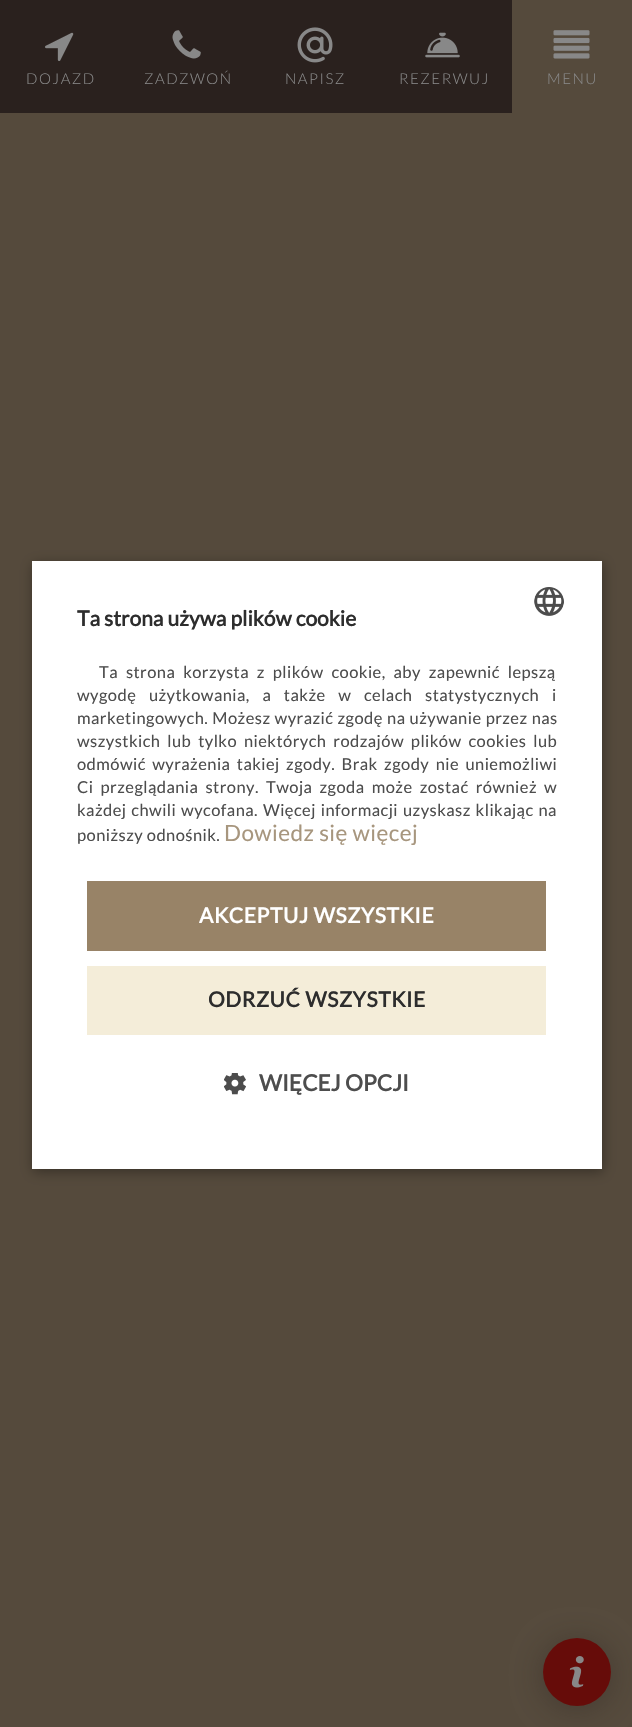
void draw(SkCanvas* canvas) {
	SkPaint fill;
	fill.setAntiAlias(true);
	auto makeFont = [&](const char* family, int weight, float size, bool italic = false) {
		SkFontStyle style(weight, SkFontStyle::kNormal_Width,
			italic ? SkFontStyle::kItalic_Slant : SkFontStyle::kUpright_Slant);
		SkFont result(fontMgr->matchFamilyStyle(family, style), size);
		result.setSubpixel(true);
		return result;
	};
	auto text = [&](const char* s, float x, float y, const SkFont& font) {
		canvas->drawString(s, x, y, font, fill);
	};
	auto spacedText = [&](const char* s, float x, float y, const SkFont& font, const SkPaint& ink, float letter, float word) {
		std::vector<SkGlyphID> glyphs(font.countText(s, strlen(s), SkTextEncoding::kUTF8));
		std::vector<float> xs(glyphs.size());
		font.textToGlyphs(s, strlen(s), SkTextEncoding::kUTF8, glyphs);
		font.getXPos(glyphs, xs, x);
		float extra = 0;
		for (size_t i = 0; i < glyphs.size(); i++) {
			xs[i] += extra;
			extra += letter + word * (glyphs[i] == font.unicharToGlyph(' '));
		}
		canvas->drawTextBlob(SkTextBlob::MakeFromPosHGlyphs(glyphs, xs, y, font), 0, 0, ink);
	};
	auto box = [&](float l, float t, float r, float b) {
		canvas->drawRect(SkRect::MakeLTRB(l, t, r, b), fill);
	};
	auto picture = [&](const char* path, float l, float t, float r, float b) {
		auto image = SkImages::DeferredFromEncodedData(SkData::MakeFromFileName(path));
		canvas->drawImageRect(image, SkRect::MakeLTRB(l, t, r, b), SkSamplingOptions());
	};
	canvas->clear(0xFF554A3C);
	fill.setColor(0xFF2A211E);
	box(0, 0, 512, 113);
	picture("image0.png", 45, 32, 74, 61);
	picture("image1.png", 172, 30, 201, 59);
	picture("image2.png", 297, 27, 333, 63);
	picture("image3.png", 425, 32, 460, 58);
	picture("image4.png", 553, 30, 590, 59);
	fill.setColor(0x662A211E);
	fill.setMaskFilter(SkMaskFilter::MakeBlur(kNormal_SkBlurStyle, 15));
	canvas->drawRoundRect(SkRect::MakeLTRB(543, 1641, 611, 1709), 34, 34, fill);
	fill.setMaskFilter(nullptr);
	fill.setColor(0xFF660C09);
	canvas->drawCircle(577, 1672, 34, fill);
	picture("image5.png", 569, 1656, 584, 1688);
	fill.setColor(0x59000000);
	fill.setMaskFilter(SkMaskFilter::MakeBlur(kNormal_SkBlurStyle, 6));
	canvas->drawRect(SkRect::MakeLTRB(33, 564, 603, 1172), fill);
	fill.setMaskFilter(nullptr);
	fill.setColor(0xFFFFFFFF);
	box(32, 561, 602, 1169);
	picture("image6.png", 534, 587, 564, 616);
	fill.setColor(0xFF988367);
	box(87, 881, 546, 951);
	fill.setColor(0xFFF4EDD9);
	box(87, 966, 546, 1035);
	picture("image7.png", 224, 1073, 246, 1095);
	auto font1 = makeFont("Lato", 300, 15);
	fill.setColor(0xFF888888);
	spacedText("DOJAZD", 26, 84, font1, fill, 1.5f, 0);
	spacedText("ZADZWOŃ", 144, 84, font1, fill, 1.5f, 0);
	spacedText("NAPISZ", 285, 84, font1, fill, 1.5f, 0);
	spacedText("REZERWUJ", 399, 84, font1, fill, 1.5f, 0);
	spacedText("MENU", 547, 84, font1, fill, 1.5f, 0);
	auto font2 = makeFont("Lato", 700, 21);
	fill.setColor(0xFF2D2D2D);
	text("Ta strona używa plików cookie", 77, 626, font2);
	auto font3 = makeFont("Lato", 400, 16.5f);
	fill.setColor(0xFF4D4D4D);
	spacedText("Ta strona korzysta z plików cookie, aby zapewnić lepszą", 99, 678, font3, fill, 0.45f, 4.25f);
	spacedText("wygodę użytkowania, a także w celach statystycznych i", 77, 701, font3, fill, 0.45f, 9);
	spacedText("marketingowych. Możesz wyrazić zgodę na używanie przez nas", 77, 724, font3, fill, 0.45f, 0.5f);
	spacedText("wszystkich lub tylko niektórych rodzajów plików cookies lub", 77, 747, font3, fill, 0.45f, 3.25f);
	spacedText("odmówić wyrażenia takiej zgody. Brak zgody nie uniemożliwi", 77, 770, font3, fill, 0.45f, 2.75f);
	spacedText("Ci przeglądania strony. Twoja zgoda może zostać również w", 77, 793, font3, fill, 0.45f, 3.5f);
	spacedText("każdej chwili wycofana. Więcej informacji uzyskasz klikając na", 77, 816, font3, fill, 0.45f, 1.25f);
	spacedText("poniższy odnośnik.", 77, 841, font3, fill, 0.45f, 0);
	auto font4 = makeFont("Lato", 400, 22.5f);
	fill.setColor(0xFFA7967E);
	spacedText("Dowiedz się więcej", 224, 841, font4, fill, 0.45f, 0);
	fill.setColor(0xFFFFFFFF);
	spacedText("AKCEPTUJ WSZYSTKIE", 199, 923, font2, fill, 0.6f, 0);
	fill.setColor(0xFF2D2D2D);
	spacedText("ODRZUĆ WSZYSTKIE", 208, 1007, font2, fill, 0.6f, 0);
	auto font5 = makeFont("Lato", 700, 22.5f);
	fill.setColor(0xFF4D4D4D);
	text("WIĘCEJ OPCJI", 259, 1091, font5);
}
